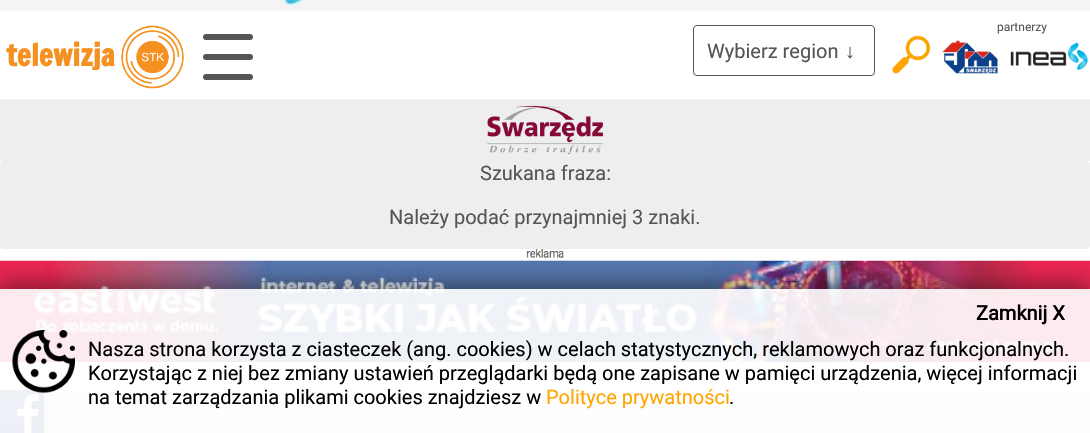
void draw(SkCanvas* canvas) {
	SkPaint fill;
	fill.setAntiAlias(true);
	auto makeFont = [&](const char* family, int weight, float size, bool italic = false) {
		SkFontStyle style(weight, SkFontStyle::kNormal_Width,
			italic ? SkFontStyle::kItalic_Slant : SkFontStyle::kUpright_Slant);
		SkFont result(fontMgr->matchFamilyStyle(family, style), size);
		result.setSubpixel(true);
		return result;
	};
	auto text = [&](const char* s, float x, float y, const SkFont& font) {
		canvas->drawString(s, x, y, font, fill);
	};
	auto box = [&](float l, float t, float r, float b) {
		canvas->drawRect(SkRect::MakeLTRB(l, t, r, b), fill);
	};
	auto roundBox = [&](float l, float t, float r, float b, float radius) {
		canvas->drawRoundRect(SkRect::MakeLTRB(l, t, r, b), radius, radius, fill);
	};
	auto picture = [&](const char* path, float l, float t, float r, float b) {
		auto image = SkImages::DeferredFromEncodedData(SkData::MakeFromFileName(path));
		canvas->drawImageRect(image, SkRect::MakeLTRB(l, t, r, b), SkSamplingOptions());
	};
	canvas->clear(0xFFFFFFFF);
	picture("image0.png", 0, 0, 1090, 11);
	picture("image1.png", 942, 40, 998, 74);
	picture("image2.png", 1010, 42, 1088, 71);
	picture("image3.png", 121, 25, 184, 89);
	fill.setColor(0xFF555555);
	roundBox(203, 34, 253, 40, 3);
	roundBox(203, 54, 253, 60, 3);
	roundBox(203, 74, 253, 80, 3);
	fill.setStyle(SkPaint::kStroke_Style);
	fill.setStrokeWidth(1);
	canvas->drawRoundRect(SkRect::MakeLTRB(693.5f, 25.5f, 874.5f, 75.5f), 3.5f, 3.5f, fill);
	picture("image4.png", 892, 35, 930, 74);
	fill.setStyle(SkPaint::kFill_Style);
	fill.setColor(0xFFEEEEEE);
	box(0, 99, 1090, 161);
	picture("image5.png", 487, 105, 603, 155);
	roundBox(0, 161, 1090, 249, 4);
	picture("image6.png", 526, 249, 564, 258);
	picture("image7.png", 0, 260, 1090, 362);
	canvas->drawPath(SkPathBuilder().moveTo(4, 391).lineTo(1086, 391).cubicTo(1088, 391, 1090, 393, 1090, 395).lineTo(1090, 423).lineTo(0, 423).lineTo(0, 395).cubicTo(0, 393, 2, 391, 4, 391).close().detach(), fill);
	box(43, 423, 1090, 433);
	fill.setColor(0x4D000000);
	fill.setMaskFilter(SkMaskFilter::MakeBlur(kNormal_SkBlurStyle, 4.5f));
	canvas->drawRoundRect(SkRect::MakeLTRB(0, 395, 44, 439), 4, 4, fill);
	fill.setMaskFilter(nullptr);
	picture("image8.png", 0, 390, 44, 433);
	canvas->save();
	canvas->clipRect(SkRect::MakeLTRB(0, 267, 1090, 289));
	fill.setColor(0x66000000);
	fill.setMaskFilter(SkMaskFilter::MakeBlur(kNormal_SkBlurStyle, 9.5f));
	canvas->drawRect(SkRect::MakeLTRB(0, 283, 1090, 428), fill);
	fill.setMaskFilter(nullptr);
	canvas->restore();
	fill.setColor(0xE6FFFFFF);
	box(0, 289, 1090, 433);
	picture("image9.png", 12, 330, 75, 393);
	auto font1 = makeFont("Roboto", 400, 12);
	fill.setColor(0xFF555555);
	text("partnerzy", 997, 31, font1);
	auto font2 = makeFont("Francois One", 700, 30);
	fill.setColor(0xFFF59120);
	text("telewizja", 6, 66, font2);
	auto font3 = makeFont("Roboto", 400, 20);
	fill.setColor(0xFF555555);
	text("Wybierz region", 707, 58, font3);
	auto font4 = makeFont("Liberation Sans", 400, 20);
	text("↓", 845, 58, font4);
	text("Szukana fraza:", 480, 180, font3);
	text("Należy podać przynajmniej 3 znaki.", 389, 224, font3);
	auto font5 = makeFont("Roboto", 700, 20);
	fill.setColor(0xFF000000);
	text("Zamknij X", 976, 320, font5);
	text("Nasza strona korzysta z ciasteczek (ang. cookies) w celach statystycznych, reklamowych oraz funkcjonalnych.", 88, 356, font3);
	text("Korzystając z niej bez zmiany ustawień przeglądarki będą one zapisane w pamięci urządzenia, więcej informacji", 88, 380, font3);
	text("na temat zarządzania plikami cookies znajdziesz w", 88, 404, font3);
	fill.setColor(0xFFFFA500);
	text("Polityce prywatności", 546, 404, font3);
	fill.setColor(0xFF000000);
	text(".", 729, 404, font3);
}
